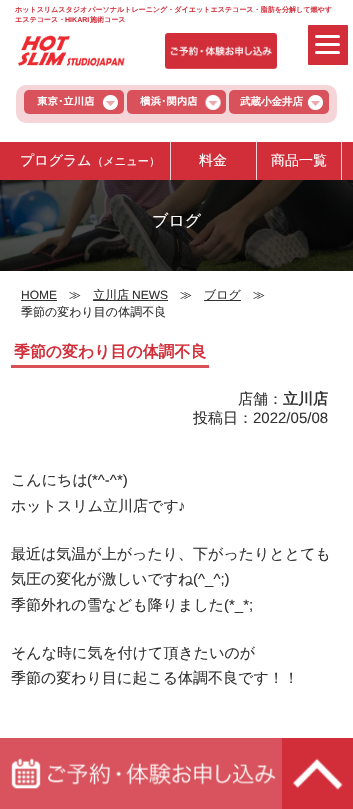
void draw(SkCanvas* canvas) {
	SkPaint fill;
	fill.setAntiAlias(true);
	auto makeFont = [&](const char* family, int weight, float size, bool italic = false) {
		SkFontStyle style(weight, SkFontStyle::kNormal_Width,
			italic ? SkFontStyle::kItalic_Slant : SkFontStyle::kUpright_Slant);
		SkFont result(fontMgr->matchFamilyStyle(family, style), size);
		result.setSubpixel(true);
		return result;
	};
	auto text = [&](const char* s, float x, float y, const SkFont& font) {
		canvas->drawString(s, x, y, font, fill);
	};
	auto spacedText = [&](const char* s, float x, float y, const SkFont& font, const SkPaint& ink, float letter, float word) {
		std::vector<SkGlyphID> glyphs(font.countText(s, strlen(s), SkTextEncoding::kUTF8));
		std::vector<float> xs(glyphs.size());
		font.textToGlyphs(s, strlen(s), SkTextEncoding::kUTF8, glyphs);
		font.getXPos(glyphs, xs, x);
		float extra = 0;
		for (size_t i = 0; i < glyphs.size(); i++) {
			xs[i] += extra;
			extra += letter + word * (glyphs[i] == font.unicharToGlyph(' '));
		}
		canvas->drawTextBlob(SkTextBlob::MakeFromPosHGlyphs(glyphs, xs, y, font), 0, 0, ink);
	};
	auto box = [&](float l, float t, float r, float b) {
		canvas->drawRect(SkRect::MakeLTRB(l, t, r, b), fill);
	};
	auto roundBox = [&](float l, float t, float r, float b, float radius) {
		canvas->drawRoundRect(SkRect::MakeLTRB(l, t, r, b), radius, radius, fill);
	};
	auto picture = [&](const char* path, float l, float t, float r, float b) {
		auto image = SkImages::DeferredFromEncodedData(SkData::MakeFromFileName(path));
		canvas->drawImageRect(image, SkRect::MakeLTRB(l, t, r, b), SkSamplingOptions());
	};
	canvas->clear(0xFFFFFFFF);
	picture("image0.png", 18, 35, 125, 67);
	picture("image1.png", 165, 33, 277, 69);
	fill.setColor(0xFFF6D5D8);
	roundBox(16, 85, 337, 123, 10);
	picture("image2.png", 24, 90, 124, 114);
	picture("image3.png", 127, 90, 226, 114);
	picture("image4.png", 229, 90, 329, 114);
	fill.setColor(0xFFD12E3A);
	box(0, 142, 353, 180);
	fill.setColor(0xFFF6D5D8);
	box(170, 142, 171, 180);
	box(256, 142, 257, 180);
	box(341, 142, 342, 180);
	picture("image5.png", 0, 180, 353, 271);
	fill.setColor(0xFF333333);
	box(21, 300, 57, 301);
	box(93, 300, 168, 301);
	box(204, 300, 241, 301);
	fill.setColor(0xFFD85159);
	box(11, 365, 209, 368);
	fill.setColor(0xFFD12E3A);
	roundBox(308, 25, 348, 65, 1);
	fill.setColor(0xFFFFFFFF);
	roundBox(315, 35, 340, 38, 1.5f);
	roundBox(315, 43, 340, 46, 1.5f);
	roundBox(315, 51, 340, 54, 1.5f);
	picture("image6.png", 0, 738, 282, 809);
	picture("image7.png", 282, 738, 353, 809);
	auto font1 = makeFont("WenQuanYi Zen Hei", 700, 7.05f);
	fill.setColor(0xFFD12E3A);
	spacedText("ホットスリムスタジオ パーソナルトレーニング・ダイエットエステコース・脂肪を分解して燃やす", 15, 12, font1, fill, 0, -1);
	text("エステコース・", 15, 22, font1);
	auto font2 = makeFont("Liberation Sans", 700, 7.05f);
	text("HIKARI", 65, 22, font2);
	text("施術コース", 90, 22, font1);
	auto font3 = makeFont("IPAGothic", 700, 10.5f);
	fill.setColor(0xFFFFFFFF);
	text("東京･立川店", 37, 105, font3);
	text("横浜･関内店", 140, 105, font3);
	auto font4 = makeFont("WenQuanYi Zen Hei", 700, 10.5f);
	text("武蔵小金井店", 240, 105, font4);
	auto font5 = makeFont("WenQuanYi Zen Hei", 500, 14);
	text("プログラム", 20, 165, font5);
	auto font6 = makeFont("WenQuanYi Zen Hei", 500, 11.25f);
	text("（メニュー）", 92, 165, font6);
	text("料金", 199, 165, font5);
	text("商品一覧", 271, 165, font5);
	auto font7 = makeFont("WenQuanYi Zen Hei", 500, 16);
	text("ブログ", 152, 226, font7);
	auto font8 = makeFont("Liberation Sans", 400, 12);
	fill.setColor(0xFF333333);
	text("HOME", 21, 299, font8);
	auto font9 = makeFont("WenQuanYi Zen Hei", 500, 12);
	text("≫", 69, 299, font9);
	text("立川店", 93, 299, font9);
	text("NEWS", 132, 299, font8);
	text("≫", 180, 299, font9);
	text("ブログ", 204, 299, font9);
	text("≫", 253, 299, font9);
	text("季節の変わり目の体調不良", 21, 316, font9);
	auto font10 = makeFont("WenQuanYi Zen Hei", 700, 15.9f);
	fill.setColor(0xFFD12E3A);
	text("季節の変わり目の体調不良", 14, 357, font10);
	auto font11 = makeFont("WenQuanYi Zen Hei", 500, 15);
	fill.setColor(0xFF333333);
	text("店舗：", 238, 404, font11);
	auto font12 = makeFont("WenQuanYi Zen Hei", 700, 15);
	text("立川店", 283, 404, font12);
	text("投稿日：", 193, 423, font11);
	auto font13 = makeFont("Liberation Sans", 400, 15);
	text("2022/05/08", 253, 423, font13);
	text("こんにちは", 11, 485, font11);
	text("(*^-^*)", 87, 485, font13);
	text("ホットスリム立川店です", 11, 511, font11);
	text("♪", 178, 511, font13);
	text("最近は気温が上がったり、下がったりととても", 11, 559, font11);
	text("気圧の変化が激しいですね", 11, 584, font11);
	text("(^_^;)", 193, 584, font13);
	text("季節外れの雪なども降りました", 11, 610, font11);
	text("(*_*;", 224, 610, font13);
	text("そんな時に気を付けて頂きたいのが", 11, 658, font11);
	text("季節の変わり目に起こる体調不良です！！", 11, 683, font11);
}
